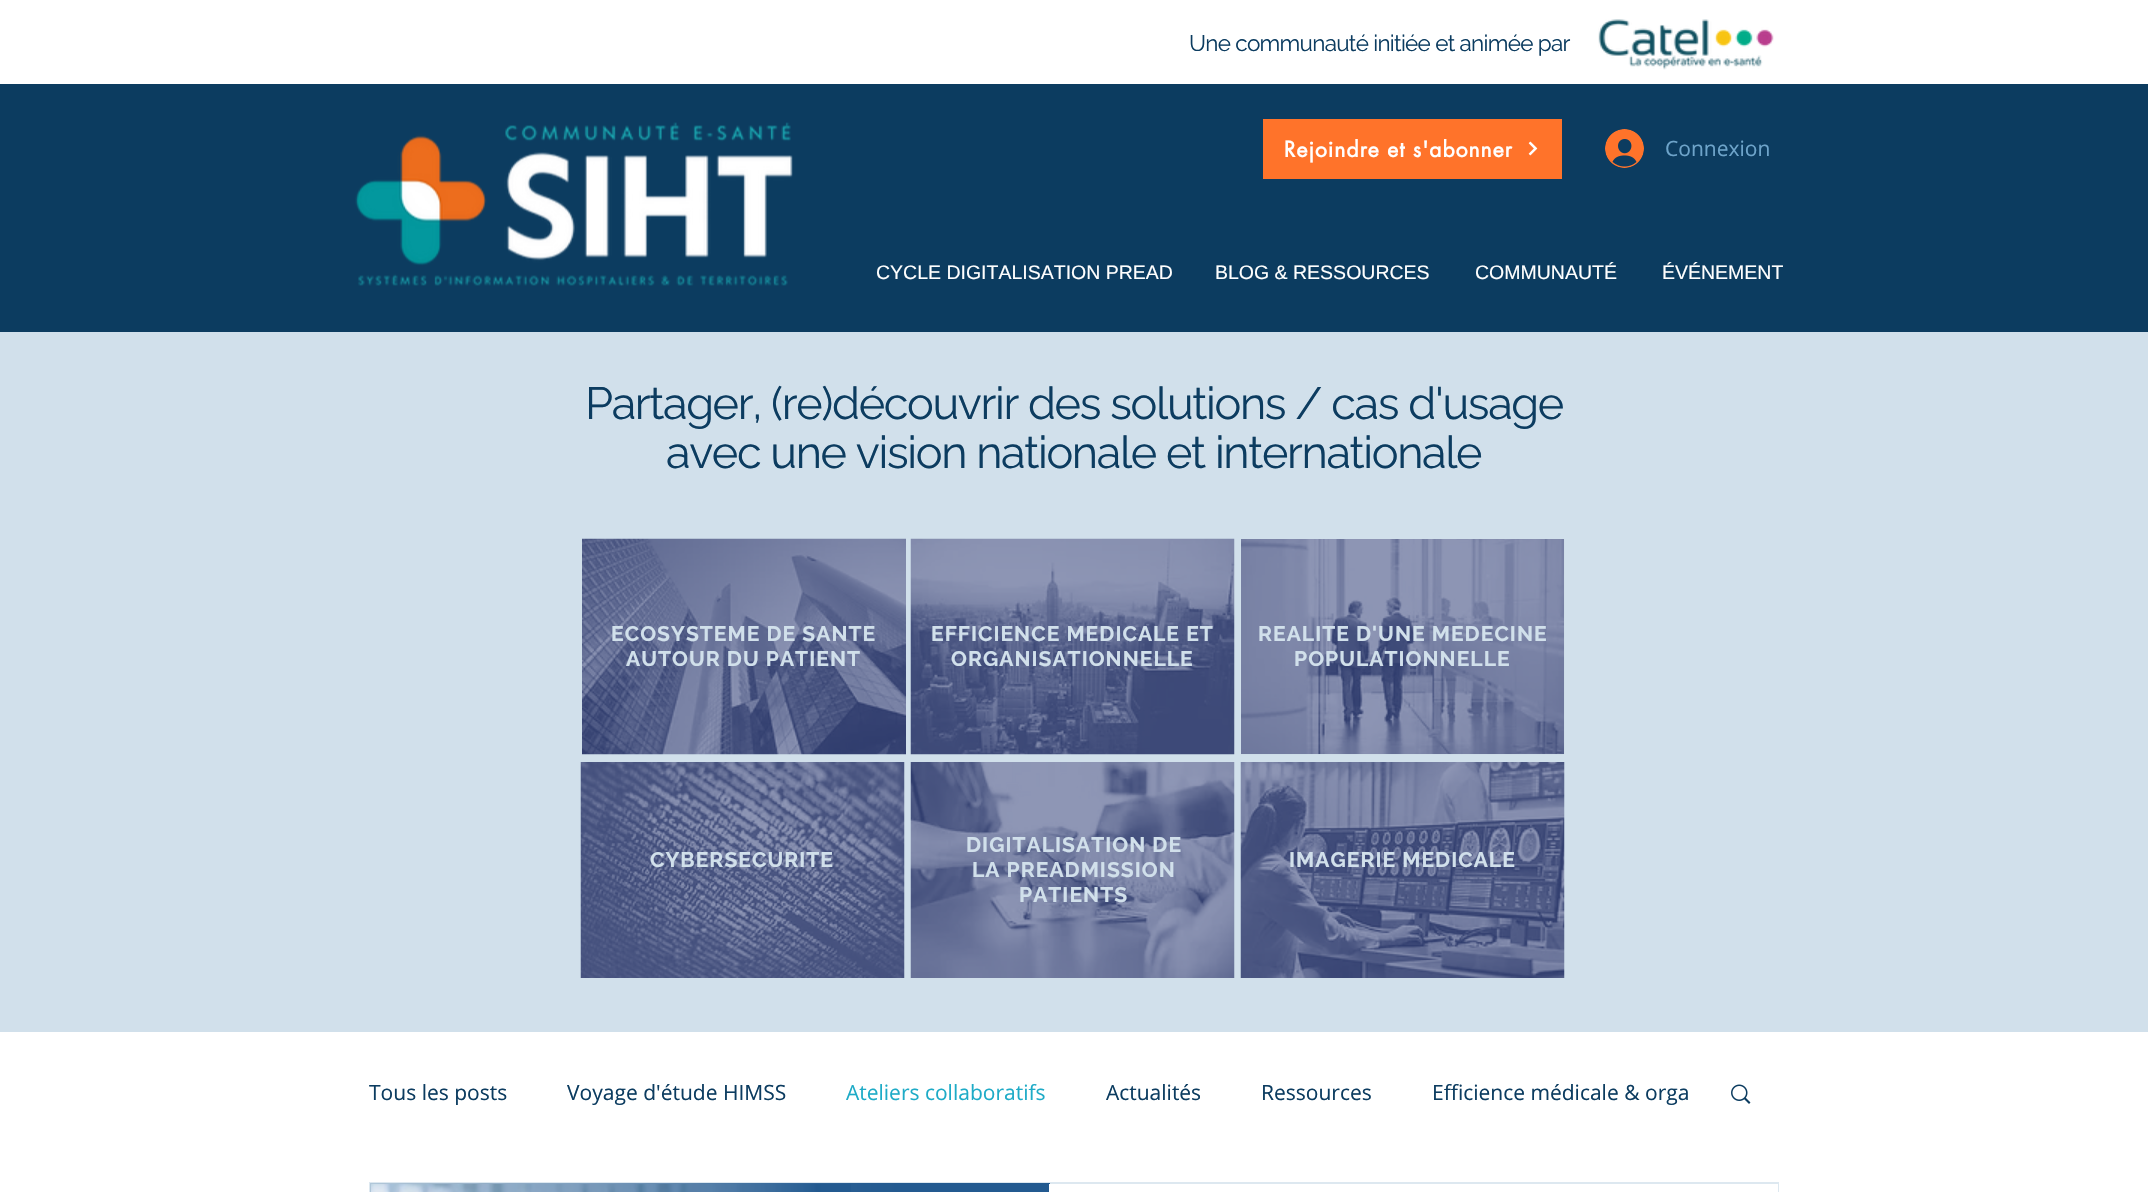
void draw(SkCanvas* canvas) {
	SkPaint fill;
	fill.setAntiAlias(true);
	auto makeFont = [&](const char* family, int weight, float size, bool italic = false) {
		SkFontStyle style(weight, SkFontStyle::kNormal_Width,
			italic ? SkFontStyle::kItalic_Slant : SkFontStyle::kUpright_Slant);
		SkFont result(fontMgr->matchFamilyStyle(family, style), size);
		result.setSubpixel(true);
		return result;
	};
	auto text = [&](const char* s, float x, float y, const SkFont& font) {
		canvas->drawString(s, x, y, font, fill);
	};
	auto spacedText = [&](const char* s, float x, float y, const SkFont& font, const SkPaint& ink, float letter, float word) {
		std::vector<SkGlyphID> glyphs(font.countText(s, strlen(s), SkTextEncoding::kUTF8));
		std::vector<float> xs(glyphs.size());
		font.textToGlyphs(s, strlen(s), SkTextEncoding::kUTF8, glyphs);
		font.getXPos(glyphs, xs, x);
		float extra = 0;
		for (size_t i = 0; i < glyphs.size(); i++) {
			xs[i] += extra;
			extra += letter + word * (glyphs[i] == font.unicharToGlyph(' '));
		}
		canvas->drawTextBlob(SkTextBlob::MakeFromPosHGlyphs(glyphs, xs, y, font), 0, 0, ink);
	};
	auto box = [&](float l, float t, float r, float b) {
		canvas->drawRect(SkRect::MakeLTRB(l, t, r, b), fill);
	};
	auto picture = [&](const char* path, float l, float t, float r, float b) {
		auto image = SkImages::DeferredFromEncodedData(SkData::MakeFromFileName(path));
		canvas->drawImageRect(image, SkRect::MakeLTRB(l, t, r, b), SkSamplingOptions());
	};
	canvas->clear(0xFFFFFFFF);
	picture("image0.png", 1598, 19, 1774, 70);
	fill.setColor(0xFF0C3C60);
	box(0, 84, 2148, 332);
	picture("image1.png", 355, 122, 793, 286);
	fill.setColor(0xFFFF732A);
	box(1263, 119, 1562, 179);
	picture("image2.png", 1528, 141, 1538, 156);
	picture("image3.png", 1605, 129, 1644, 168);
	fill.setColor(0xFFD1E0EB);
	box(0, 332, 2148, 1032);
	picture("image4.png", 582, 538, 906, 755);
	picture("image5.png", 910, 538, 1235, 755);
	picture("image6.png", 1241, 539, 1565, 755);
	picture("image7.png", 580, 762, 905, 978);
	picture("image8.png", 910, 762, 1235, 978);
	picture("image9.png", 1240, 762, 1565, 978);
	picture("image10.png", 1731, 1084, 1751, 1104);
	fill.setStyle(SkPaint::kStroke_Style);
	fill.setStrokeWidth(2);
	fill.setColor(0xFFDDE8F0);
	canvas->drawRect(SkRect::MakeLTRB(370, 1183, 1778, 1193), fill);
	picture("image11.png", 370, 1183, 1050, 1192);
	picture("image12.png", 371, 1184, 851, 1192);
	fill.setStyle(SkPaint::kFill_Style);
	fill.setColor(0xFFFFFFFF);
	box(1049, 1184, 1778, 1192);
	auto font1 = makeFont("Raleway", 400, 22.5f);
	fill.setColor(0xFF0C3C60);
	spacedText("Une communauté initiée et animée par", 1189, 51, font1, fill, -0.7f, 0);
	auto font2 = makeFont("futura", 700, 21);
	fill.setColor(0xFFFFFFFF);
	spacedText("Rejoindre et s'abonner", 1284, 157, font2, fill, 1.05f, 0);
	auto font3 = makeFont("Open Sans", 400, 21);
	fill.setColor(0xFF6EA4CA);
	text("Connexion", 1665, 156, font3);
	auto font4 = makeFont("Liberation Sans", 400, 19.5f);
	fill.setColor(0xFFFFFFFF);
	text("CYCLE DIGITALISATION PREAD", 876, 279, font4);
	text("BLOG & RESSOURCES", 1215, 279, font4);
	text("COMMUNAUTÉ", 1475, 279, font4);
	text("ÉVÉNEMENT", 1662, 279, font4);
	auto font5 = makeFont("Raleway", 400, 45);
	fill.setColor(0xFF0C3C60);
	spacedText("Partager, (re)découvrir des solutions / cas d'usage", 585, 419, font5, fill, -1.35f, 0);
	spacedText("avec une vision nationale et internationale", 666, 468, font5, fill, -1.35f, 0);
	auto font6 = makeFont("Raleway", 700, 21);
	fill.setColor(0xFFD1E0EB);
	spacedText("ECOSYSTEME DE SANTE", 611, 641, font6, fill, 1.05f, 0);
	spacedText("AUTOUR DU PATIENT", 626, 666, font6, fill, 1.05f, 0);
	spacedText("EFFICIENCE MEDICALE ET", 931, 641, font6, fill, 1.05f, 0);
	spacedText("ORGANISATIONNELLE", 951, 666, font6, fill, 1.05f, 0);
	spacedText("REALITE D'UNE MEDECINE", 1258, 641, font6, fill, 1.05f, 0);
	spacedText("POPULATIONNELLE", 1294, 666, font6, fill, 1.05f, 0);
	spacedText("CYBERSECURITE", 650, 867, font6, fill, 1.05f, 0);
	spacedText("DIGITALISATION DE", 966, 852, font6, fill, 1.05f, 0);
	spacedText("LA PREADMISSION", 972, 877, font6, fill, 1.05f, 0);
	spacedText("PATIENTS", 1019, 902, font6, fill, 1.05f, 0);
	spacedText("IMAGERIE MEDICALE", 1289, 867, font6, fill, 1.05f, 0);
	fill.setColor(0xFF0C3C60);
	text("Tous les posts", 369, 1100, font3);
	text("Voyage d'étude HIMSS", 567, 1100, font3);
	fill.setColor(0xFF1EABC7);
	text("Ateliers collaboratifs", 846, 1100, font3);
	fill.setColor(0xFF0C3C60);
	text("Actualités", 1106, 1100, font3);
	text("Ressources", 1261, 1100, font3);
	text("Efficience médicale & orga", 1432, 1100, font3);
}
